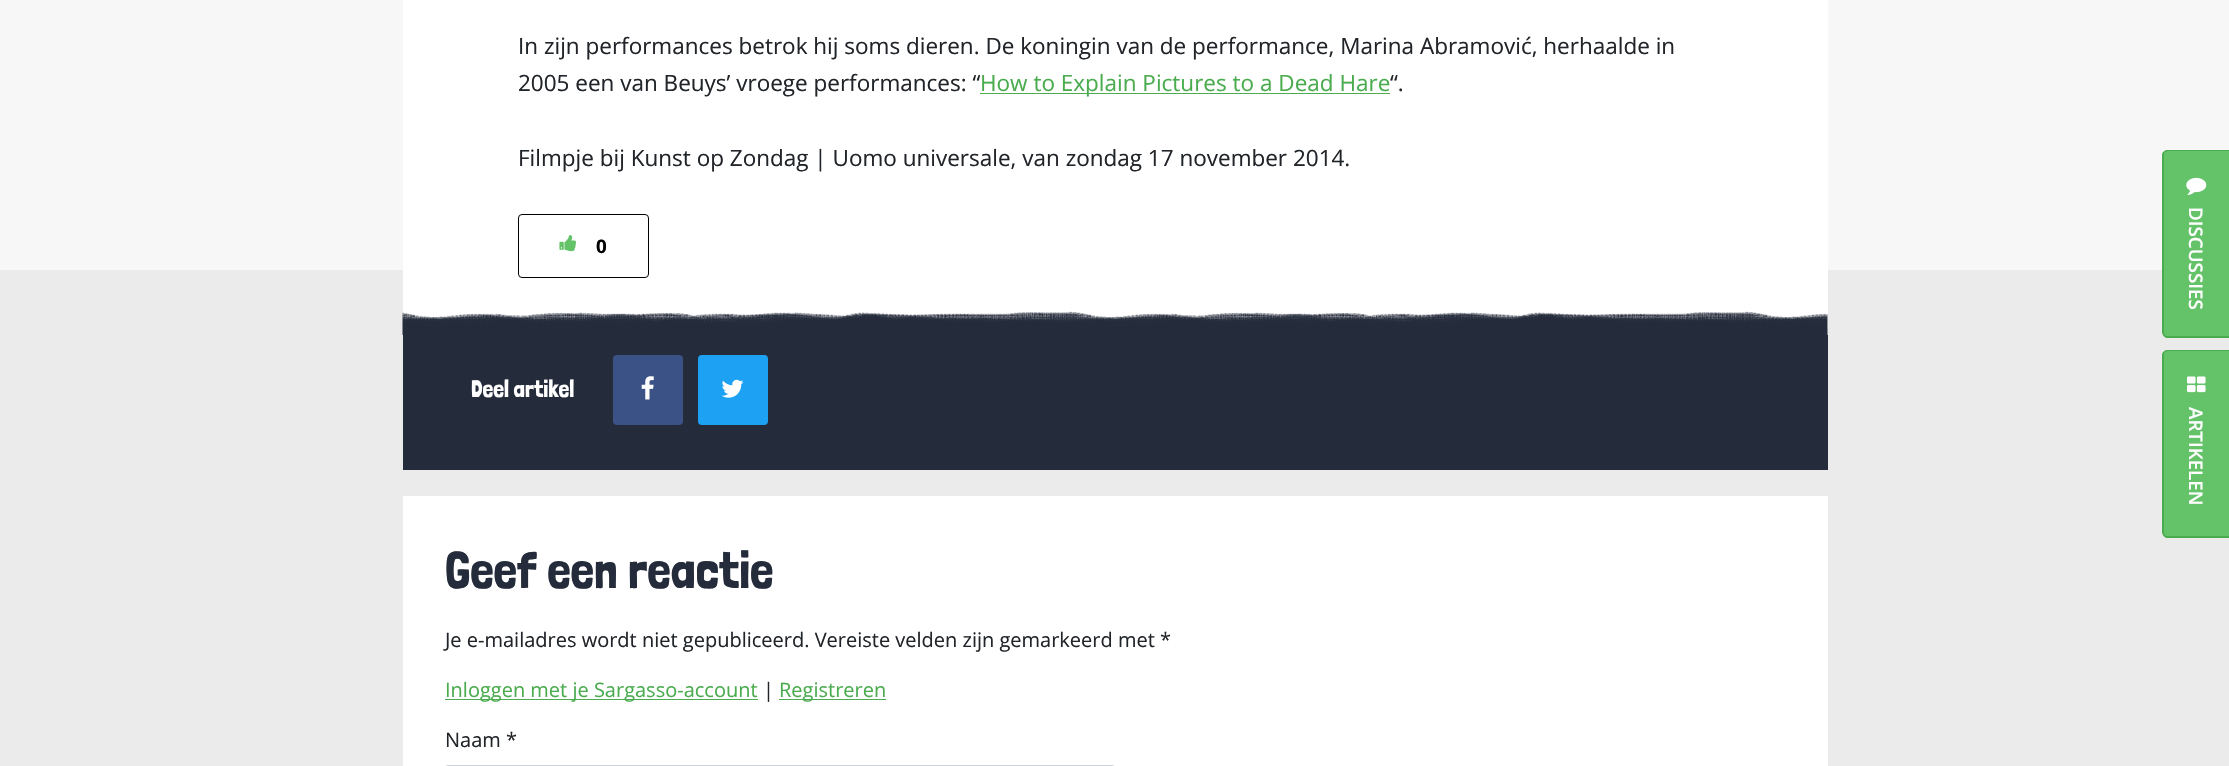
void draw(SkCanvas* canvas) {
	SkPaint fill;
	fill.setAntiAlias(true);
	auto makeFont = [&](const char* family, int weight, float size, bool italic = false) {
		SkFontStyle style(weight, SkFontStyle::kNormal_Width,
			italic ? SkFontStyle::kItalic_Slant : SkFontStyle::kUpright_Slant);
		SkFont result(fontMgr->matchFamilyStyle(family, style), size);
		result.setSubpixel(true);
		return result;
	};
	auto text = [&](const char* s, float x, float y, const SkFont& font) {
		canvas->drawString(s, x, y, font, fill);
	};
	auto box = [&](float l, float t, float r, float b) {
		canvas->drawRect(SkRect::MakeLTRB(l, t, r, b), fill);
	};
	auto roundBox = [&](float l, float t, float r, float b, float radius) {
		canvas->drawRoundRect(SkRect::MakeLTRB(l, t, r, b), radius, radius, fill);
	};
	auto picture = [&](const char* path, float l, float t, float r, float b) {
		auto image = SkImages::DeferredFromEncodedData(SkData::MakeFromFileName(path));
		canvas->drawImageRect(image, SkRect::MakeLTRB(l, t, r, b), SkSamplingOptions());
	};
	canvas->clear(0xFFF7F7F7);
	fill.setColor(0xFFEBEBEB);
	box(0, 270, 2229, 766);
	fill.setColor(0xFFFFFFFF);
	box(403, 0, 1828, 328);
	fill.setColor(0xFF4AAC4E);
	box(980, 93, 1390, 94);
	fill.setStyle(SkPaint::kStroke_Style);
	fill.setStrokeWidth(1);
	fill.setColor(0xFF000000);
	canvas->drawRoundRect(SkRect::MakeLTRB(518.5f, 214.5f, 648.5f, 277.5f), 3.5f, 3.5f, fill);
	picture("image0.png", 559, 235, 577, 252);
	fill.setStyle(SkPaint::kFill_Style);
	fill.setColor(0xFF242B3A);
	box(403, 335, 1828, 470);
	picture("image1.png", 402, 311, 1828, 335);
	fill.setColor(0xFF3A5285);
	roundBox(613, 355, 683, 425, 4);
	picture("image2.png", 641, 376, 654, 400);
	fill.setColor(0xFF1DA1F2);
	roundBox(698, 355, 768, 425, 4);
	picture("image3.png", 721, 379, 744, 398);
	fill.setColor(0xFFFFFFFF);
	box(403, 496, 1828, 766);
	fill.setColor(0xFF4AAC4E);
	box(445, 699, 758, 700);
	box(779, 699, 886, 700);
	fill.setStyle(SkPaint::kStroke_Style);
	fill.setColor(0xFFCED4DA);
	canvas->drawRoundRect(SkRect::MakeLTRB(445.5f, 765.5f, 1114.5f, 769.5f), 2.5f, 2.5f, fill);
	fill.setStyle(SkPaint::kFill_Style);
	fill.setColor(0xFF64C268);
	canvas->drawPath(SkPathBuilder().moveTo(2168, 150).lineTo(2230, 150).lineTo(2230, 338).lineTo(2168, 338).cubicTo(2165, 338, 2163, 336, 2163, 333).lineTo(2163, 155).cubicTo(2163, 152, 2165, 150, 2168, 150).close().detach(), fill);
	fill.setColor(0xFF4AAC4E);
	canvas->drawPath(SkPathBuilder(SkPathFillType::kEvenOdd).moveTo(2168, 150).lineTo(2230, 150).lineTo(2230, 338).lineTo(2168, 338).cubicTo(2165, 338, 2162, 335, 2162, 332).lineTo(2162, 155).cubicTo(2162, 152, 2165, 150, 2168, 150).close().moveTo(2168, 151).lineTo(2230, 151).lineTo(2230, 336).lineTo(2168, 336).cubicTo(2165, 336, 2164, 335, 2164, 332).lineTo(2164, 155).cubicTo(2164, 153, 2165, 151, 2168, 151).close().detach(), fill);
	picture("image4.png", 2186, 177, 2207, 195);
	fill.setColor(0xFF64C268);
	canvas->drawPath(SkPathBuilder().moveTo(2168, 350).lineTo(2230, 350).lineTo(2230, 538).lineTo(2168, 538).cubicTo(2165, 538, 2163, 536, 2163, 533).lineTo(2163, 355).cubicTo(2163, 352, 2165, 350, 2168, 350).close().detach(), fill);
	fill.setColor(0xFF4AAC4E);
	canvas->drawPath(SkPathBuilder(SkPathFillType::kEvenOdd).moveTo(2168, 350).lineTo(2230, 350).lineTo(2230, 538).lineTo(2168, 538).cubicTo(2165, 538, 2162, 535, 2162, 532).lineTo(2162, 355).cubicTo(2162, 352, 2165, 350, 2168, 350).close().moveTo(2168, 351).lineTo(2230, 351).lineTo(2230, 536).lineTo(2168, 536).cubicTo(2165, 536, 2164, 535, 2164, 532).lineTo(2164, 355).cubicTo(2164, 353, 2165, 351, 2168, 351).close().detach(), fill);
	picture("image5.png", 2186, 376, 2206, 393);
	auto font1 = makeFont("Open Sans", 400, 22.5f);
	fill.setColor(0xFF212529);
	text("In zijn performances betrok hij soms dieren. De koningin van de performance, Marina Abramović, herhaalde in", 518, 54, font1);
	text("2005 een van Beuys’ vroege performances: “", 518, 91, font1);
	fill.setColor(0xFF4AAC4E);
	text("How to Explain Pictures to a Dead Hare", 980, 91, font1);
	fill.setColor(0xFF212529);
	text("“.", 1390, 91, font1);
	text("Filmpje bij Kunst op Zondag | Uomo universale, van zondag 17 november 2014.", 518, 166, font1);
	auto font2 = makeFont("Open Sans", 700, 18.75f);
	fill.setColor(0xFF000000);
	text("0", 596, 253, font2);
	auto font3 = makeFont("Londrina Solid", 400, 24);
	fill.setColor(0xFFFFFFFF);
	text("Deel artikel", 471, 397, font3);
	auto font4 = makeFont("Londrina Solid", 400, 52.5f);
	fill.setColor(0xFF242B3A);
	text("Geef een reactie", 445, 588, font4);
	auto font5 = makeFont("Open Sans", 400, 20);
	fill.setColor(0xFF212529);
	text("Je e-mailadres wordt niet gepubliceerd. Vereiste velden zijn gemarkeerd met *", 445, 647, font5);
	fill.setColor(0xFF4AAC4E);
	text("Inloggen met je Sargasso-account", 445, 697, font5);
	fill.setColor(0xFF212529);
	text("|", 763, 697, font5);
	fill.setColor(0xFF4AAC4E);
	text("Registreren", 779, 697, font5);
	fill.setColor(0xFF212529);
	text("Naam *", 445, 747, font5);
	auto font6 = makeFont("Open Sans", 600, 18.75f);
	fill.setColor(0xFFFFFFFF);
	canvas->save();
	canvas->rotate(90, 2189, 207);
	text("DISCUSSIES", 2189, 207, font6);
	canvas->restore();
	canvas->save();
	canvas->rotate(90, 2189, 407);
	text("ARTIKELEN", 2189, 407, font6);
	canvas->restore();
}
